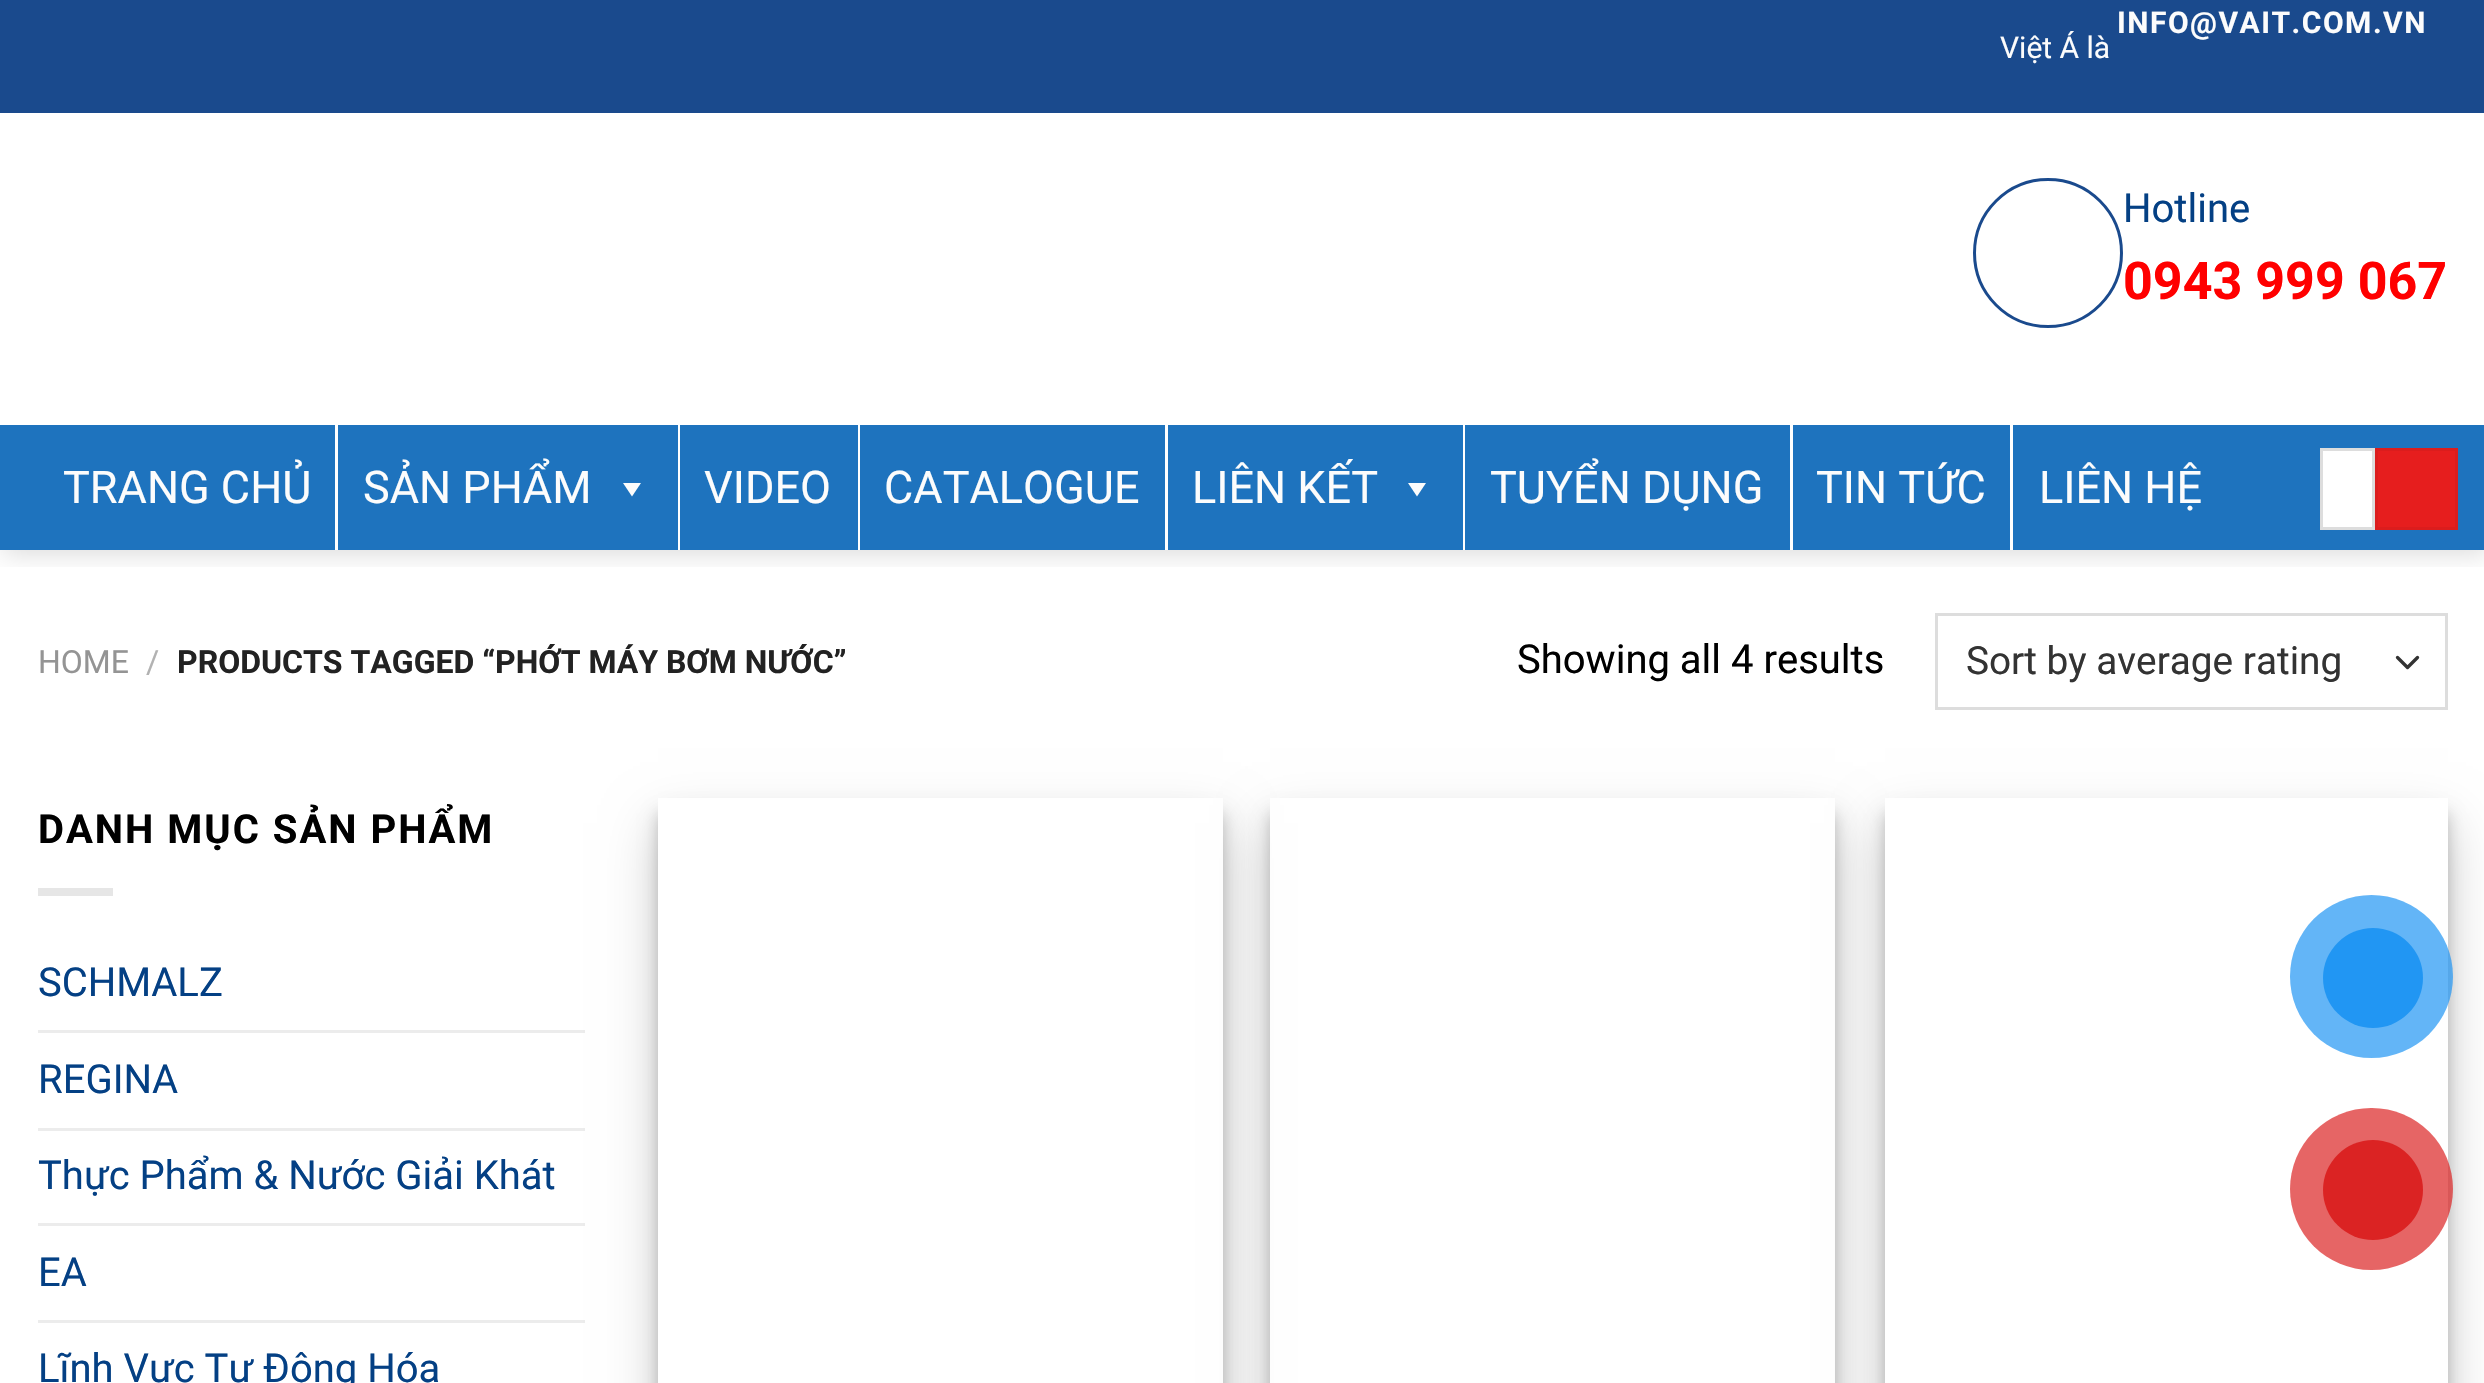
void draw(SkCanvas* canvas) {
	SkPaint fill;
	fill.setAntiAlias(true);
	auto makeFont = [&](const char* family, int weight, float size, bool italic = false) {
		SkFontStyle style(weight, SkFontStyle::kNormal_Width,
			italic ? SkFontStyle::kItalic_Slant : SkFontStyle::kUpright_Slant);
		SkFont result(fontMgr->matchFamilyStyle(family, style), size);
		result.setSubpixel(true);
		return result;
	};
	auto text = [&](const char* s, float x, float y, const SkFont& font) {
		canvas->drawString(s, x, y, font, fill);
	};
	auto spacedText = [&](const char* s, float x, float y, const SkFont& font, const SkPaint& ink, float letter, float word) {
		std::vector<SkGlyphID> glyphs(font.countText(s, strlen(s), SkTextEncoding::kUTF8));
		std::vector<float> xs(glyphs.size());
		font.textToGlyphs(s, strlen(s), SkTextEncoding::kUTF8, glyphs);
		font.getXPos(glyphs, xs, x);
		float extra = 0;
		for (size_t i = 0; i < glyphs.size(); i++) {
			xs[i] += extra;
			extra += letter + word * (glyphs[i] == font.unicharToGlyph(' '));
		}
		canvas->drawTextBlob(SkTextBlob::MakeFromPosHGlyphs(glyphs, xs, y, font), 0, 0, ink);
	};
	auto box = [&](float l, float t, float r, float b) {
		canvas->drawRect(SkRect::MakeLTRB(l, t, r, b), fill);
	};
	auto roundBox = [&](float l, float t, float r, float b, float radius) {
		canvas->drawRoundRect(SkRect::MakeLTRB(l, t, r, b), radius, radius, fill);
	};
	canvas->clear(0xFFFFFFFF);
	canvas->save();
	canvas->clipRect(SkRect::MakeLTRB(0, 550, 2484, 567));
	fill.setColor(0x26000000);
	fill.setMaskFilter(SkMaskFilter::MakeBlur(kNormal_SkBlurStyle, 12.5f));
	canvas->drawRect(SkRect::MakeLTRB(3, 3, 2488, 553), fill);
	fill.setMaskFilter(nullptr);
	canvas->restore();
	fill.setColor(0xFF1A4A8D);
	box(0, 0, 2484, 113);
	fill.setStyle(SkPaint::kStroke_Style);
	fill.setStrokeWidth(3);
	canvas->drawCircle(2048, 253, 73.5f, fill);
	fill.setStyle(SkPaint::kFill_Style);
	fill.setColor(0xFF1E73BE);
	box(0, 425, 2484, 550);
	fill.setColor(0xFFFFFFFF);
	box(335, 425, 338, 550);
	fill.setColor(0xFFFCFCFC);
	canvas->drawPath(SkPathBuilder().moveTo(641, 483).lineTo(632, 496.5f).lineTo(623, 483).close().detach(), fill);
	fill.setColor(0xFFFFFFFF);
	box(678, 425, 680, 550);
	box(858, 425, 860, 550);
	box(1165, 425, 1168, 550);
	fill.setColor(0xFFFCFCFC);
	canvas->drawPath(SkPathBuilder().moveTo(1426, 483).lineTo(1417, 496.5f).lineTo(1408, 483).close().detach(), fill);
	fill.setColor(0xFFFFFFFF);
	box(1463, 425, 1465, 550);
	box(1790, 425, 1793, 550);
	box(2010, 425, 2013, 550);
	canvas->drawRect(SkRect::MakeLTRB(2321.5f, 449.5f, 2373.5f, 528.5f), fill);
	fill.setStyle(SkPaint::kStroke_Style);
	fill.setColor(0xFFDDDDDD);
	canvas->drawRect(SkRect::MakeLTRB(2321.5f, 449.5f, 2373.5f, 528.5f), fill);
	fill.setStyle(SkPaint::kFill_Style);
	fill.setColor(0xFFE61E1E);
	canvas->drawRect(SkRect::MakeLTRB(2376.5f, 449.5f, 2456.5f, 528.5f), fill);
	fill.setStyle(SkPaint::kStroke_Style);
	fill.setColor(0xFFDB1D1D);
	canvas->drawRect(SkRect::MakeLTRB(2376.5f, 449.5f, 2456.5f, 528.5f), fill);
	fill.setStrokeWidth(3.3f);
	fill.setStrokeCap(SkPaint::kRound_Cap);
	fill.setStrokeJoin(SkPaint::kRound_Join);
	fill.setColor(0xFF333333);
	canvas->drawPath(SkPathBuilder().moveTo(2397.5f, 657.5f).lineTo(2407.5f, 667.5f).lineTo(2417.5f, 657.5f).detach(), fill);
	fill.setStrokeWidth(3);
	fill.setStrokeCap(SkPaint::kButt_Cap);
	fill.setStrokeJoin(SkPaint::kMiter_Join);
	fill.setColor(0xFFDDDDDD);
	canvas->drawRect(SkRect::MakeLTRB(1936.5f, 614.5f, 2446.5f, 708.5f), fill);
	fill.setStyle(SkPaint::kFill_Style);
	fill.setColor(0xFFE6E6E6);
	box(38, 888, 113, 896);
	fill.setColor(0xFFECECEC);
	box(38, 1030, 585, 1033);
	box(38, 1128, 585, 1131);
	box(38, 1223, 585, 1226);
	box(38, 1320, 585, 1323);
	fill.setColor(0x38000000);
	fill.setMaskFilter(SkMaskFilter::MakeBlur(kNormal_SkBlurStyle, 7.5f));
	canvas->drawRect(SkRect::MakeLTRB(658, 813, 1223, 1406), fill);
	fill.setMaskFilter(nullptr);
	fill.setColor(0x30000000);
	fill.setMaskFilter(SkMaskFilter::MakeBlur(kNormal_SkBlurStyle, 25));
	canvas->drawRect(SkRect::MakeLTRB(658, 823, 1223, 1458), fill);
	fill.setMaskFilter(nullptr);
	fill.setColor(0xFFFFFFFF);
	box(658, 798, 1223, 1383);
	canvas->save();
	canvas->clipPath(SkPathBuilder(SkPathFillType::kEvenOdd).moveTo(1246, 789).lineTo(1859, 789).lineTo(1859, 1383).lineTo(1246, 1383).close().moveTo(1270, 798).lineTo(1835, 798).lineTo(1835, 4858).lineTo(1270, 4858).close().detach(), true);
	fill.setColor(0x38000000);
	fill.setMaskFilter(SkMaskFilter::MakeBlur(kNormal_SkBlurStyle, 7.5f));
	canvas->drawRect(SkRect::MakeLTRB(1270, 813, 1835, 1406), fill);
	fill.setMaskFilter(nullptr);
	canvas->restore();
	canvas->save();
	canvas->clipPath(SkPathBuilder(SkPathFillType::kEvenOdd).moveTo(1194, 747).lineTo(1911, 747).lineTo(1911, 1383).lineTo(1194, 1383).close().moveTo(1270, 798).lineTo(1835, 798).lineTo(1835, 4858).lineTo(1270, 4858).close().detach(), true);
	fill.setColor(0x30000000);
	fill.setMaskFilter(SkMaskFilter::MakeBlur(kNormal_SkBlurStyle, 25));
	canvas->drawRect(SkRect::MakeLTRB(1270, 823, 1835, 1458), fill);
	fill.setMaskFilter(nullptr);
	canvas->restore();
	fill.setColor(0x38000000);
	fill.setMaskFilter(SkMaskFilter::MakeBlur(kNormal_SkBlurStyle, 7.5f));
	canvas->drawRect(SkRect::MakeLTRB(1885, 813, 2448, 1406), fill);
	fill.setMaskFilter(nullptr);
	fill.setColor(0x30000000);
	fill.setMaskFilter(SkMaskFilter::MakeBlur(kNormal_SkBlurStyle, 25));
	canvas->drawRect(SkRect::MakeLTRB(1885, 823, 2448, 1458), fill);
	fill.setMaskFilter(nullptr);
	fill.setColor(0xFFFFFFFF);
	box(1885, 798, 2448, 1383);
	fill.setColor(0xB32196F3);
	canvas->drawCircle(2371.5f, 976.5f, 81.5f, fill);
	fill.setColor(0xFF2196F3);
	canvas->drawCircle(2373, 978, 50, fill);
	fill.setColor(0xB3DB2323);
	roundBox(2290, 1108, 2453, 1270, 81);
	fill.setColor(0xFFDB2323);
	canvas->drawCircle(2373, 1190, 50, fill);
	auto font1 = makeFont("Roboto", 700, 30);
	fill.setColor(0xFFFCFCFC);
	spacedText("INFO@VAIT.COM.VN", 2117, 33, font1, fill, 1.5f, 0);
	auto font2 = makeFont("Roboto", 400, 30);
	text("Việt Á là", 2000, 58, font2);
	auto font3 = makeFont("Roboto", 400, 40);
	fill.setColor(0xFF044084);
	text("Hotline", 2123, 222, font3);
	auto font4 = makeFont("Roboto", 700, 52);
	fill.setColor(0xFFFF0000);
	text("0943 999 067", 2123, 299, font4);
	auto font5 = makeFont("Roboto", 400, 45);
	fill.setColor(0xFFFCFCFC);
	text("TRANG CHỦ", 63, 503, font5);
	text("SẢN PHẨM", 363, 503, font5);
	text("VIDEO", 704, 503, font5);
	text("CATALOGUE", 884, 503, font5);
	text("LIÊN KẾT", 1192, 503, font5);
	text("TUYỂN DỤNG", 1490, 503, font5);
	text("TIN TỨC", 1816, 503, font5);
	text("LIÊN HỆ", 2039, 503, font5);
	auto font6 = makeFont("Roboto", 400, 32);
	fill.setColor(0xFF949494);
	text("HOME", 38, 673, font6);
	fill.setColor(0xFFB2B2B2);
	text("/", 146, 673, font6);
	auto font7 = makeFont("Roboto", 700, 32);
	fill.setColor(0xFF222222);
	text("PRODUCTS TAGGED “PHỚT MÁY BƠM NƯỚC”", 177, 673, font7);
	fill.setColor(0xFF000000);
	text("Showing all 4 results", 1517, 673, font3);
	auto font8 = makeFont("Roboto", 400, 38.75f);
	fill.setColor(0xFF333333);
	text("Sort by average rating", 1966, 674, font8);
	auto font9 = makeFont("Roboto", 700, 40);
	fill.setColor(0xFF000000);
	spacedText("DANH MỤC SẢN PHẨM", 38, 843, font9, fill, 2, 0);
	fill.setColor(0xFF044084);
	text("SCHMALZ", 38, 996, font3);
	text("REGINA", 38, 1093, font3);
	text("Thực Phẩm & Nước Giải Khát", 38, 1189, font3);
	text("EA", 38, 1286, font3);
	text("Lĩnh Vực Tự Động Hóa", 38, 1382, font3);
}
